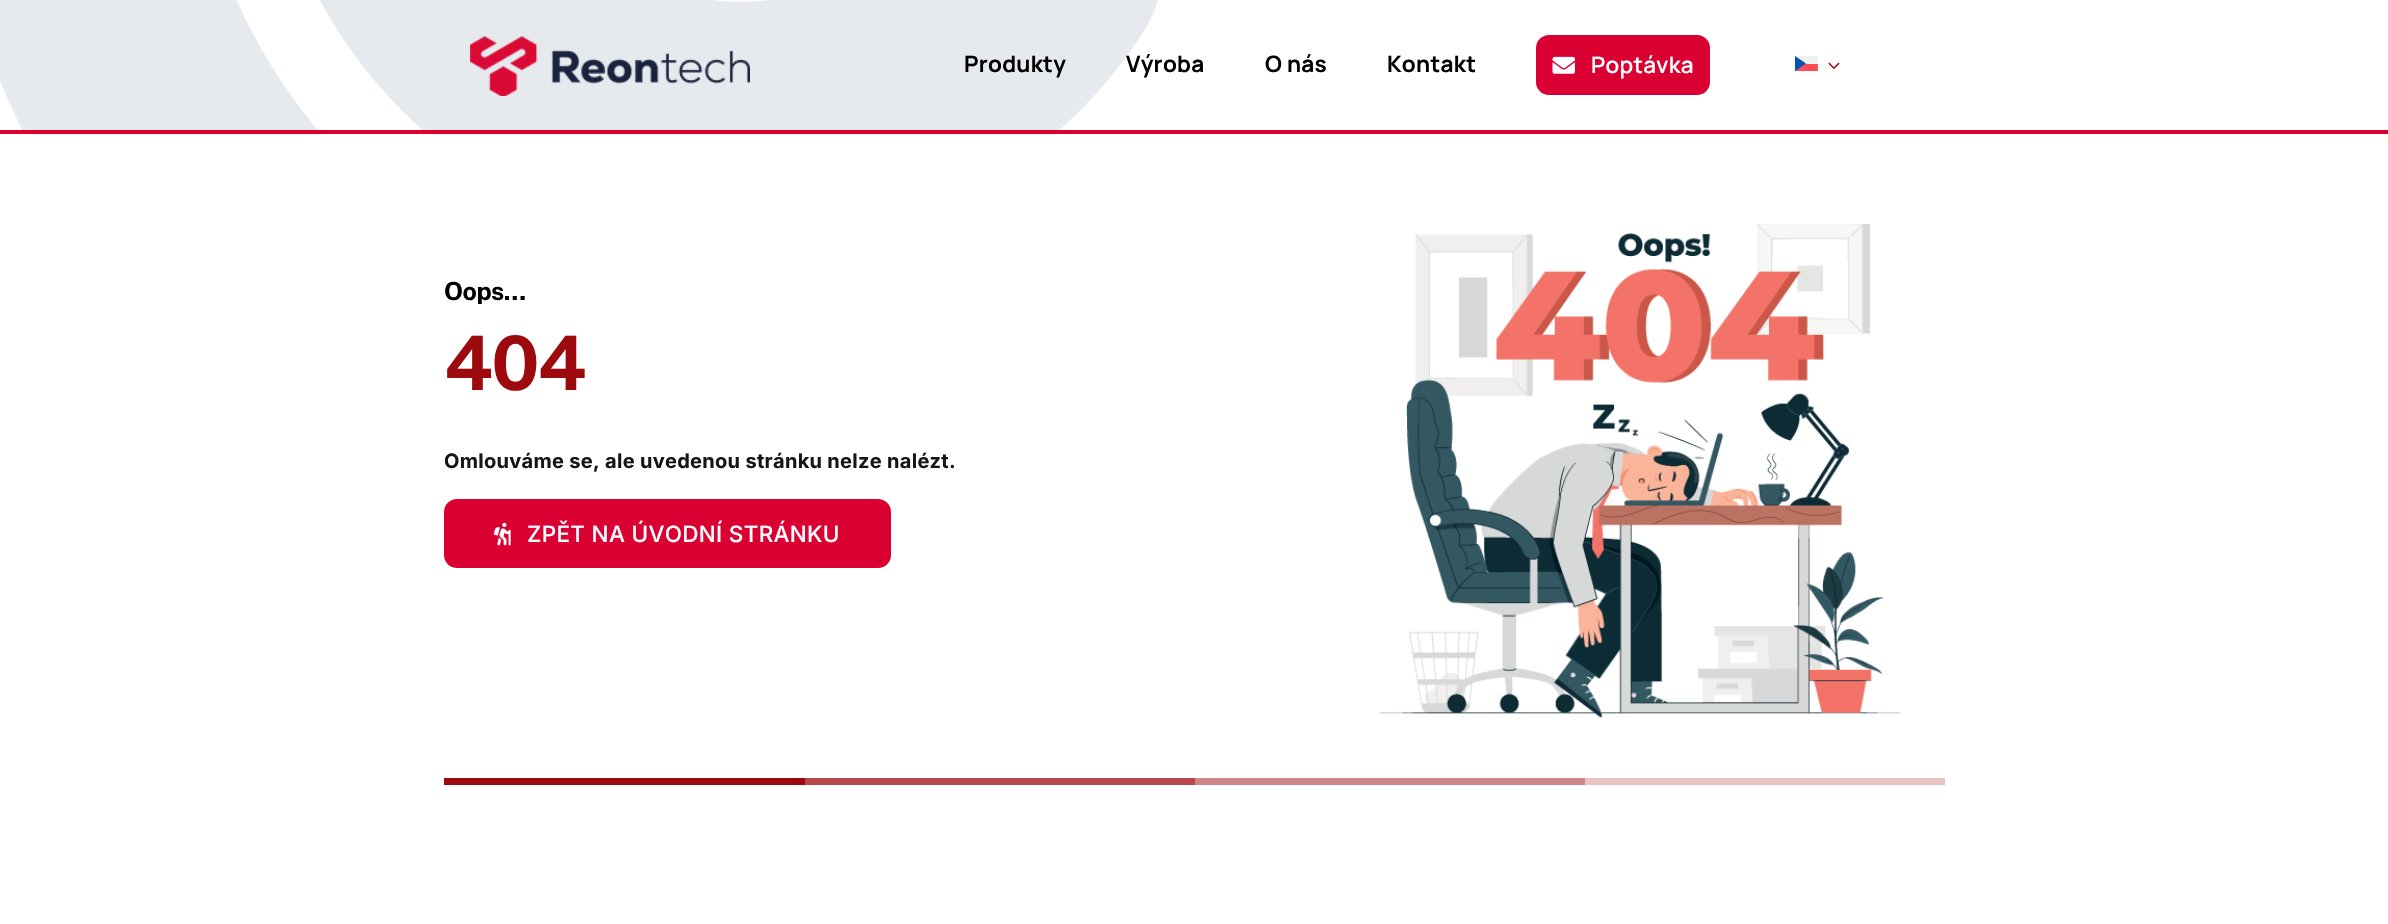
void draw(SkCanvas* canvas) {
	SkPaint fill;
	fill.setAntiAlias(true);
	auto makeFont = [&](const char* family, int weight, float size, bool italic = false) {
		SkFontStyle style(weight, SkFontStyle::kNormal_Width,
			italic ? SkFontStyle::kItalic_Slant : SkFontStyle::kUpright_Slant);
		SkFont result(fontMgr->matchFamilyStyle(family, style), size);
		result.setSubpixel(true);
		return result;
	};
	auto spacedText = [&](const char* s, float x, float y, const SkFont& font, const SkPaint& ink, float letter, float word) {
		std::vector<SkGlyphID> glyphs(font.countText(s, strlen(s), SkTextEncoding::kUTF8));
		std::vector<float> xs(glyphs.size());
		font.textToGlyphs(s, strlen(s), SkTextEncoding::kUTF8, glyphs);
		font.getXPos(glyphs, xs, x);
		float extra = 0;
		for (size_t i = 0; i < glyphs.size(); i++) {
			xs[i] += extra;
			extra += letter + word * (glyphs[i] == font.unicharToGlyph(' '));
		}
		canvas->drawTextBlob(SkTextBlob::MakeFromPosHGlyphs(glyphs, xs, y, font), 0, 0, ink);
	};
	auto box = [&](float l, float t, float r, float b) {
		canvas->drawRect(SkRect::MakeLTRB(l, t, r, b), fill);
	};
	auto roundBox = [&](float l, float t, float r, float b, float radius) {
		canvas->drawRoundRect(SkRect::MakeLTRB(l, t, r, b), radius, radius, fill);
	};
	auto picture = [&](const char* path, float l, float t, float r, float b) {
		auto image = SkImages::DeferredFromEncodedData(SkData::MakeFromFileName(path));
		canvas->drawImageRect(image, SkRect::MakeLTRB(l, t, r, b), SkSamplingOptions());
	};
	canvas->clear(0xFFFFFFFF);
	fill.setColor(0xFFE6E9ED);
	box(0, 0, 1158, 130);
	fill.setColor(0xFFDB0032);
	box(0, 130, 2388, 134);
	picture("image0.png", 0, 0, 2388, 130);
	picture("image1.png", 470, 36, 750, 96);
	roundBox(1536, 35, 1710, 95, 13);
	picture("image2.png", 1552, 56, 1575, 74);
	fill.setColor(0xFFF0F0F0);
	box(1795, 56, 1818, 64);
	fill.setColor(0xFFFF4B55);
	box(1795, 64, 1818, 71);
	fill.setColor(0xFF0052B4);
	canvas->drawPath(SkPathBuilder().moveTo(1806, 63.5f).lineTo(1795, 56).lineTo(1795, 71).close().detach(), fill);
	picture("image3.png", 1828, 62, 1840, 70);
	fill.setColor(0xFFDB0032);
	roundBox(444, 499, 891, 568, 13);
	picture("image4.png", 493, 522, 511, 546);
	picture("image5.png", 1380, 224, 1900, 718);
	fill.setColor(0xFF9D0A0E);
	box(444, 778, 805, 785);
	fill.setColor(0xFFB6474A);
	box(805, 778, 1195, 785);
	fill.setColor(0xFFCE8587);
	box(1195, 778, 1585, 785);
	fill.setColor(0xFFE7C2C3);
	box(1585, 778, 1945, 785);
	auto font1 = makeFont("Manrope", 700, 22.5f);
	fill.setColor(0xFF000000);
	spacedText("Produkty", 964, 72, font1, fill, 0.3f, 0);
	spacedText("Výroba", 1126, 72, font1, fill, 0.3f, 0);
	spacedText("O nás", 1265, 72, font1, fill, 0.3f, 0);
	spacedText("Kontakt", 1387, 72, font1, fill, 0.3f, 0);
	auto font2 = makeFont("Manrope", 600, 22.5f);
	fill.setColor(0xFFFFFFFF);
	spacedText("Poptávka", 1591, 73, font2, fill, 0.3f, 0);
	auto font3 = makeFont("Public Sans", 700, 25);
	fill.setColor(0xFF000000);
	spacedText("Oops…", 444, 300, font3, fill, -0.5f, 0);
	auto font4 = makeFont("Public Sans", 700, 75);
	fill.setColor(0xFF9D0A0E);
	spacedText("404", 444, 390, font4, fill, -2, 0);
	auto font5 = makeFont("Inter", 700, 20);
	fill.setColor(0xFF141617);
	spacedText("Omlouváme se, ale uvedenou stránku nelze nalézt.", 444, 468, font5, fill, 0.3f, 0);
	auto font6 = makeFont("Inter", 500, 22.5f);
	fill.setColor(0xFFFFFFFF);
	spacedText("ZPĚT NA ÚVODNÍ STRÁNKU", 527, 542, font6, fill, 0.3f, 0);
}
